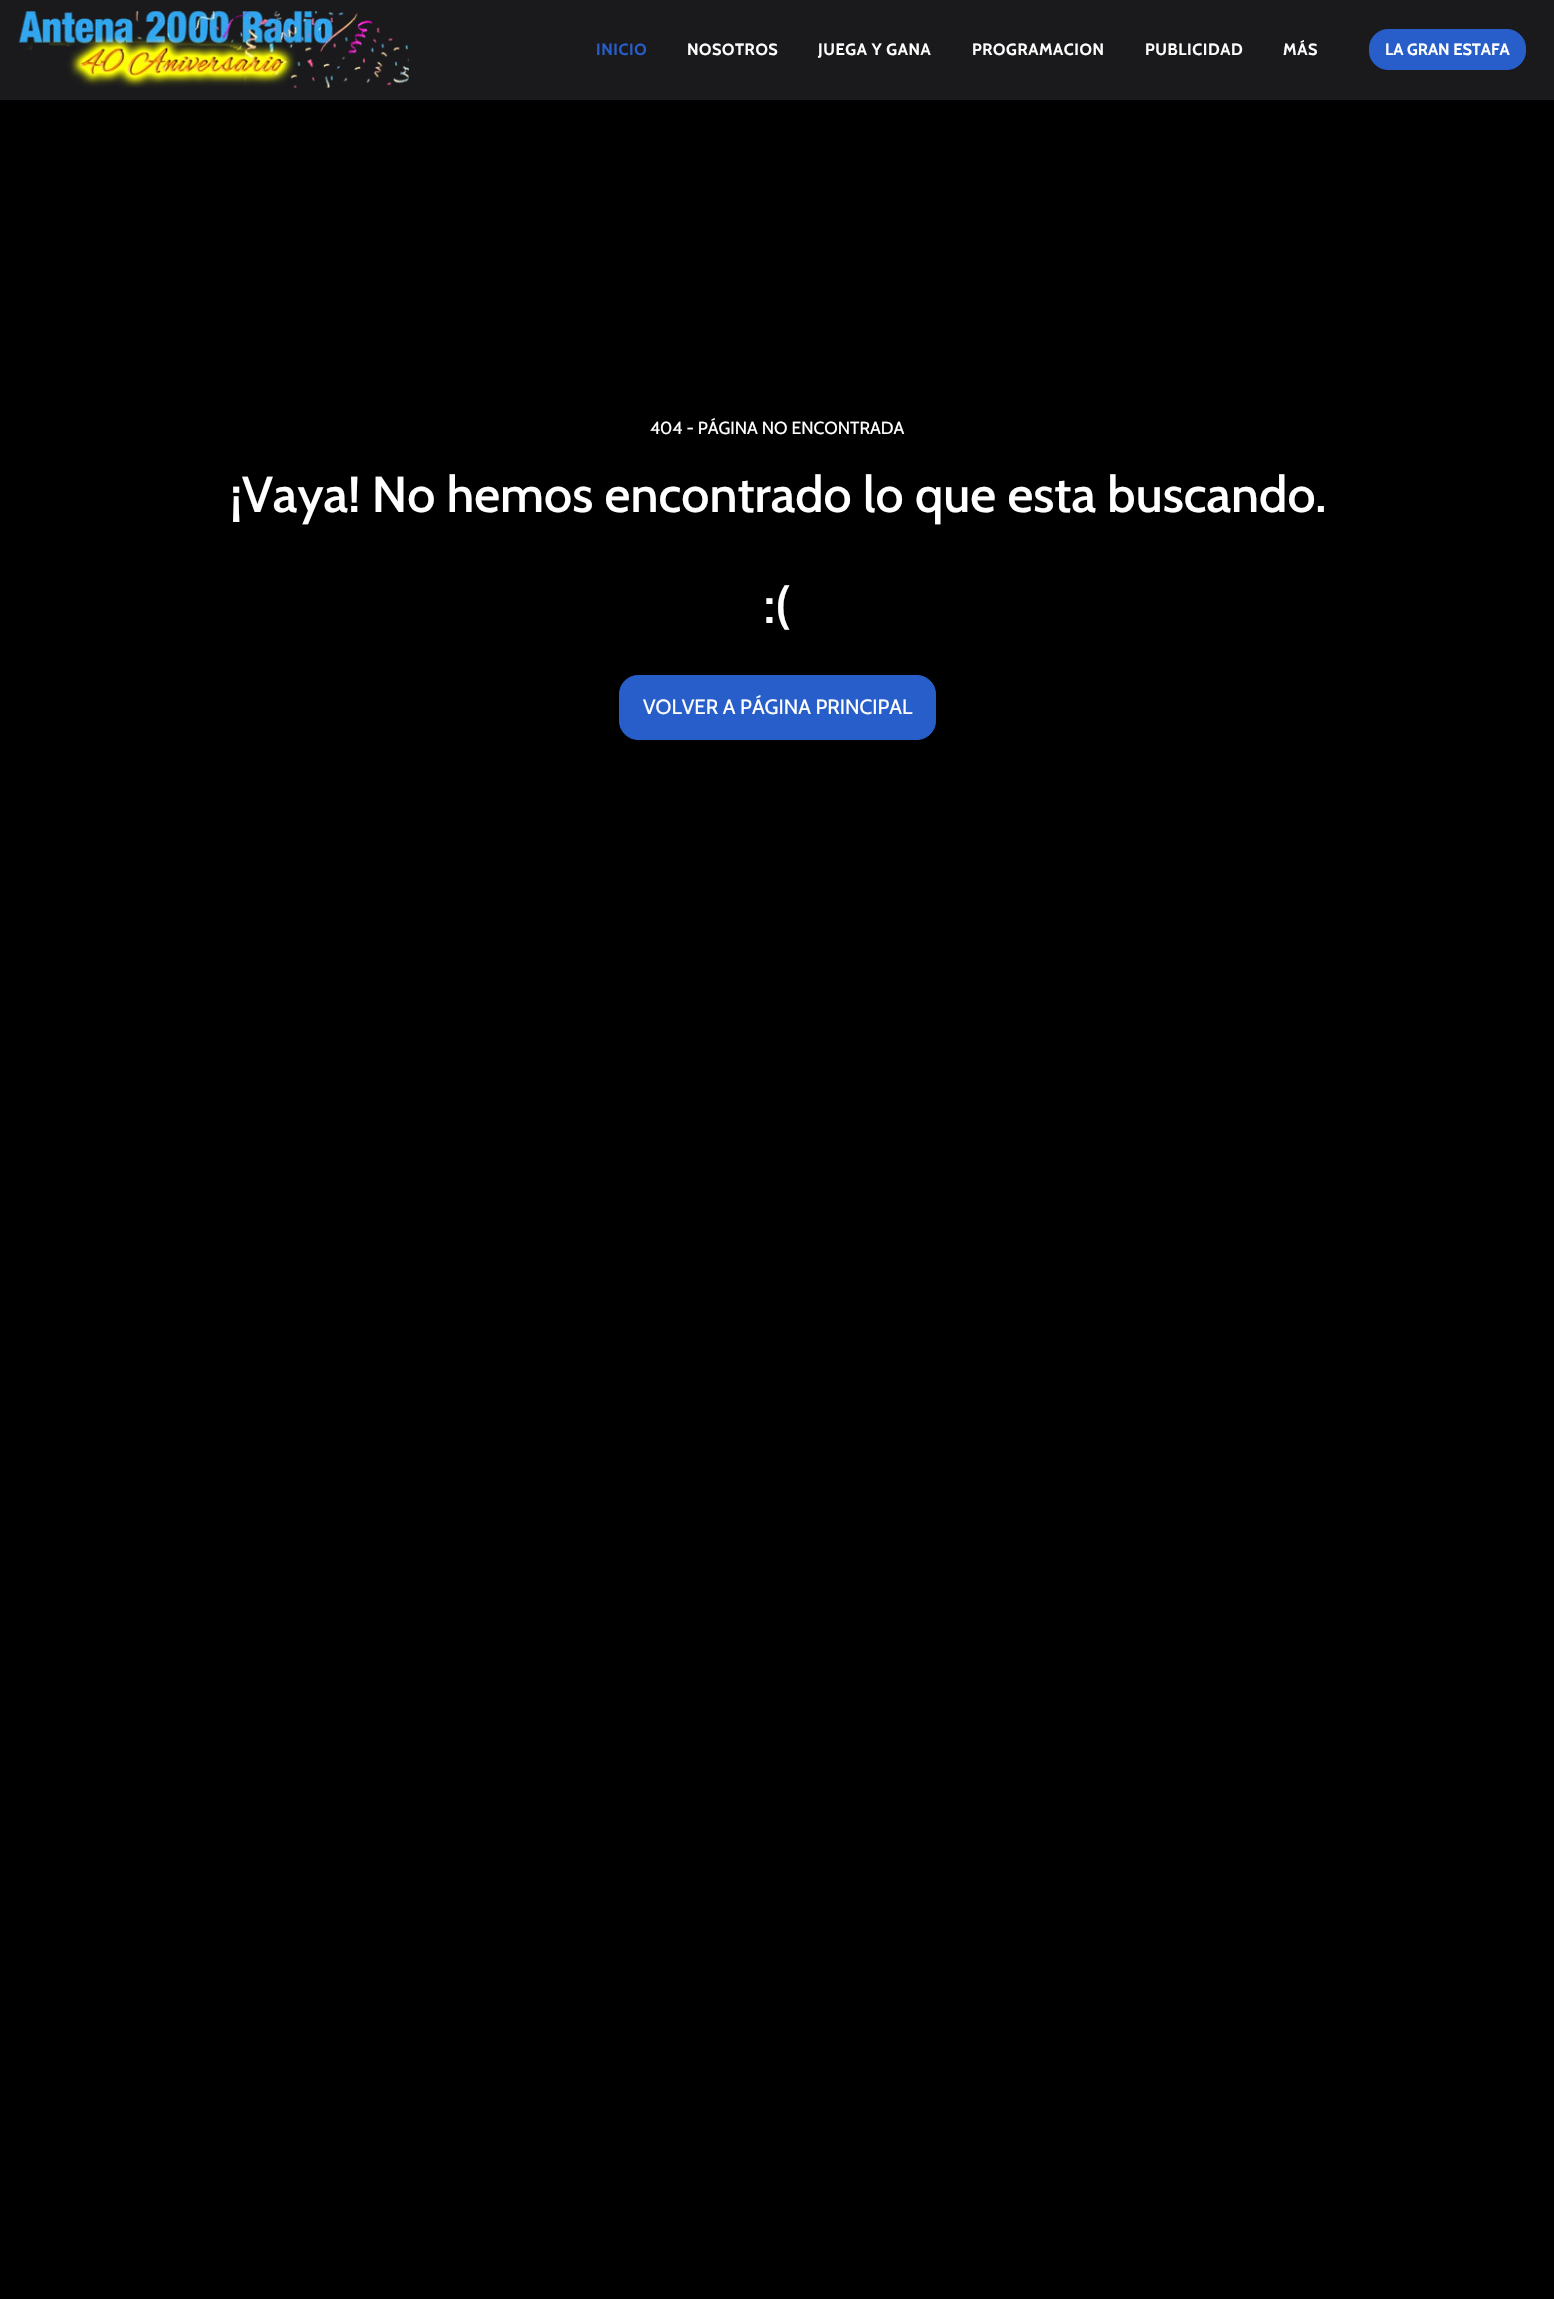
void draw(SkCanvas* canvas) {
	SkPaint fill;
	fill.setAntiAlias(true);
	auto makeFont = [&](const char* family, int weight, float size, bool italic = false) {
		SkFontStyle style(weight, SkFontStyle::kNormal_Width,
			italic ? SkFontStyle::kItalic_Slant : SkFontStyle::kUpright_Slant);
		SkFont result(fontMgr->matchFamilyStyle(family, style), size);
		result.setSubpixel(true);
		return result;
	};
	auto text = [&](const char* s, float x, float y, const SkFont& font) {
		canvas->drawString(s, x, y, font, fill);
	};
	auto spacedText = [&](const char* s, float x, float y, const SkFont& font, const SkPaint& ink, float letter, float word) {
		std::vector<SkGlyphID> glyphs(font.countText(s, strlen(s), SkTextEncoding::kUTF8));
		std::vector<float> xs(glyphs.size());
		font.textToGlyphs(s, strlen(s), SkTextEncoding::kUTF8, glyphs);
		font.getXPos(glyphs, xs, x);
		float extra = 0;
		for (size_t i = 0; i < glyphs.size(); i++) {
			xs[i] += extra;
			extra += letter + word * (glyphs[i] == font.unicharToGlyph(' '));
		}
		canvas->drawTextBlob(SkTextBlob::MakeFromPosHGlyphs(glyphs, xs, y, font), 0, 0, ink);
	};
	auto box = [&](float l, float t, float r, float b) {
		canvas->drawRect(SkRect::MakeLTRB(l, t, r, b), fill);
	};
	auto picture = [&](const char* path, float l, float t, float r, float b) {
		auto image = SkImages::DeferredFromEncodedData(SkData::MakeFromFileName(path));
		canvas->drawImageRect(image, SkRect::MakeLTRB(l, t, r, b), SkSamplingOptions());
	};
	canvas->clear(0xFF000000);
	fill.setColor(0xFF1A1A1C);
	box(0, 0, 1554, 100);
	picture("image0.png", 18, 11, 409, 88);
	fill.setColor(0xFF275ECA);
	canvas->drawRoundRect(SkRect::MakeLTRB(1369.5f, 29.5f, 1525.5f, 69.5f), 18.5f, 18.5f, fill);
	fill.setStyle(SkPaint::kStroke_Style);
	fill.setStrokeWidth(1);
	canvas->drawRoundRect(SkRect::MakeLTRB(1369.5f, 29.5f, 1525.5f, 69.5f), 18.5f, 18.5f, fill);
	fill.setStyle(SkPaint::kFill_Style);
	canvas->drawRoundRect(SkRect::MakeLTRB(619.5f, 675.5f, 935.5f, 739.5f), 18.5f, 18.5f, fill);
	fill.setStyle(SkPaint::kStroke_Style);
	canvas->drawRoundRect(SkRect::MakeLTRB(619.5f, 675.5f, 935.5f, 739.5f), 18.5f, 18.5f, fill);
	auto font1 = makeFont("Cabin", 700, 16.25f);
	fill.setStyle(SkPaint::kFill_Style);
	spacedText("INICIO", 596, 55, font1, fill, 0.6f, 0);
	fill.setColor(0xFFFFFFFF);
	spacedText("NOSOTROS", 687, 55, font1, fill, 0.6f, 0);
	spacedText("JUEGA Y GANA", 818, 55, font1, fill, 0.6f, 0);
	spacedText("PROGRAMACION", 972, 55, font1, fill, 0.6f, 0);
	spacedText("PUBLICIDAD", 1145, 55, font1, fill, 0.6f, 0);
	spacedText("MÁS", 1283, 55, font1, fill, 0.6f, 0);
	text("LA GRAN ESTAFA", 1385, 55, font1);
	auto font2 = makeFont("Cabin", 400, 17.5f);
	text("404 - PÁGINA NO ENCONTRADA", 650, 434, font2);
	auto font3 = makeFont("Cabin", 500, 50.35f);
	text("¡Vaya! No hemos encontrado lo que esta buscando.", 230, 512, font3);
	text(":(", 764, 623, font3);
	auto font4 = makeFont("Cabin", 400, 20.6f);
	text("VOLVER A PÁGINA PRINCIPAL", 643, 714, font4);
}
